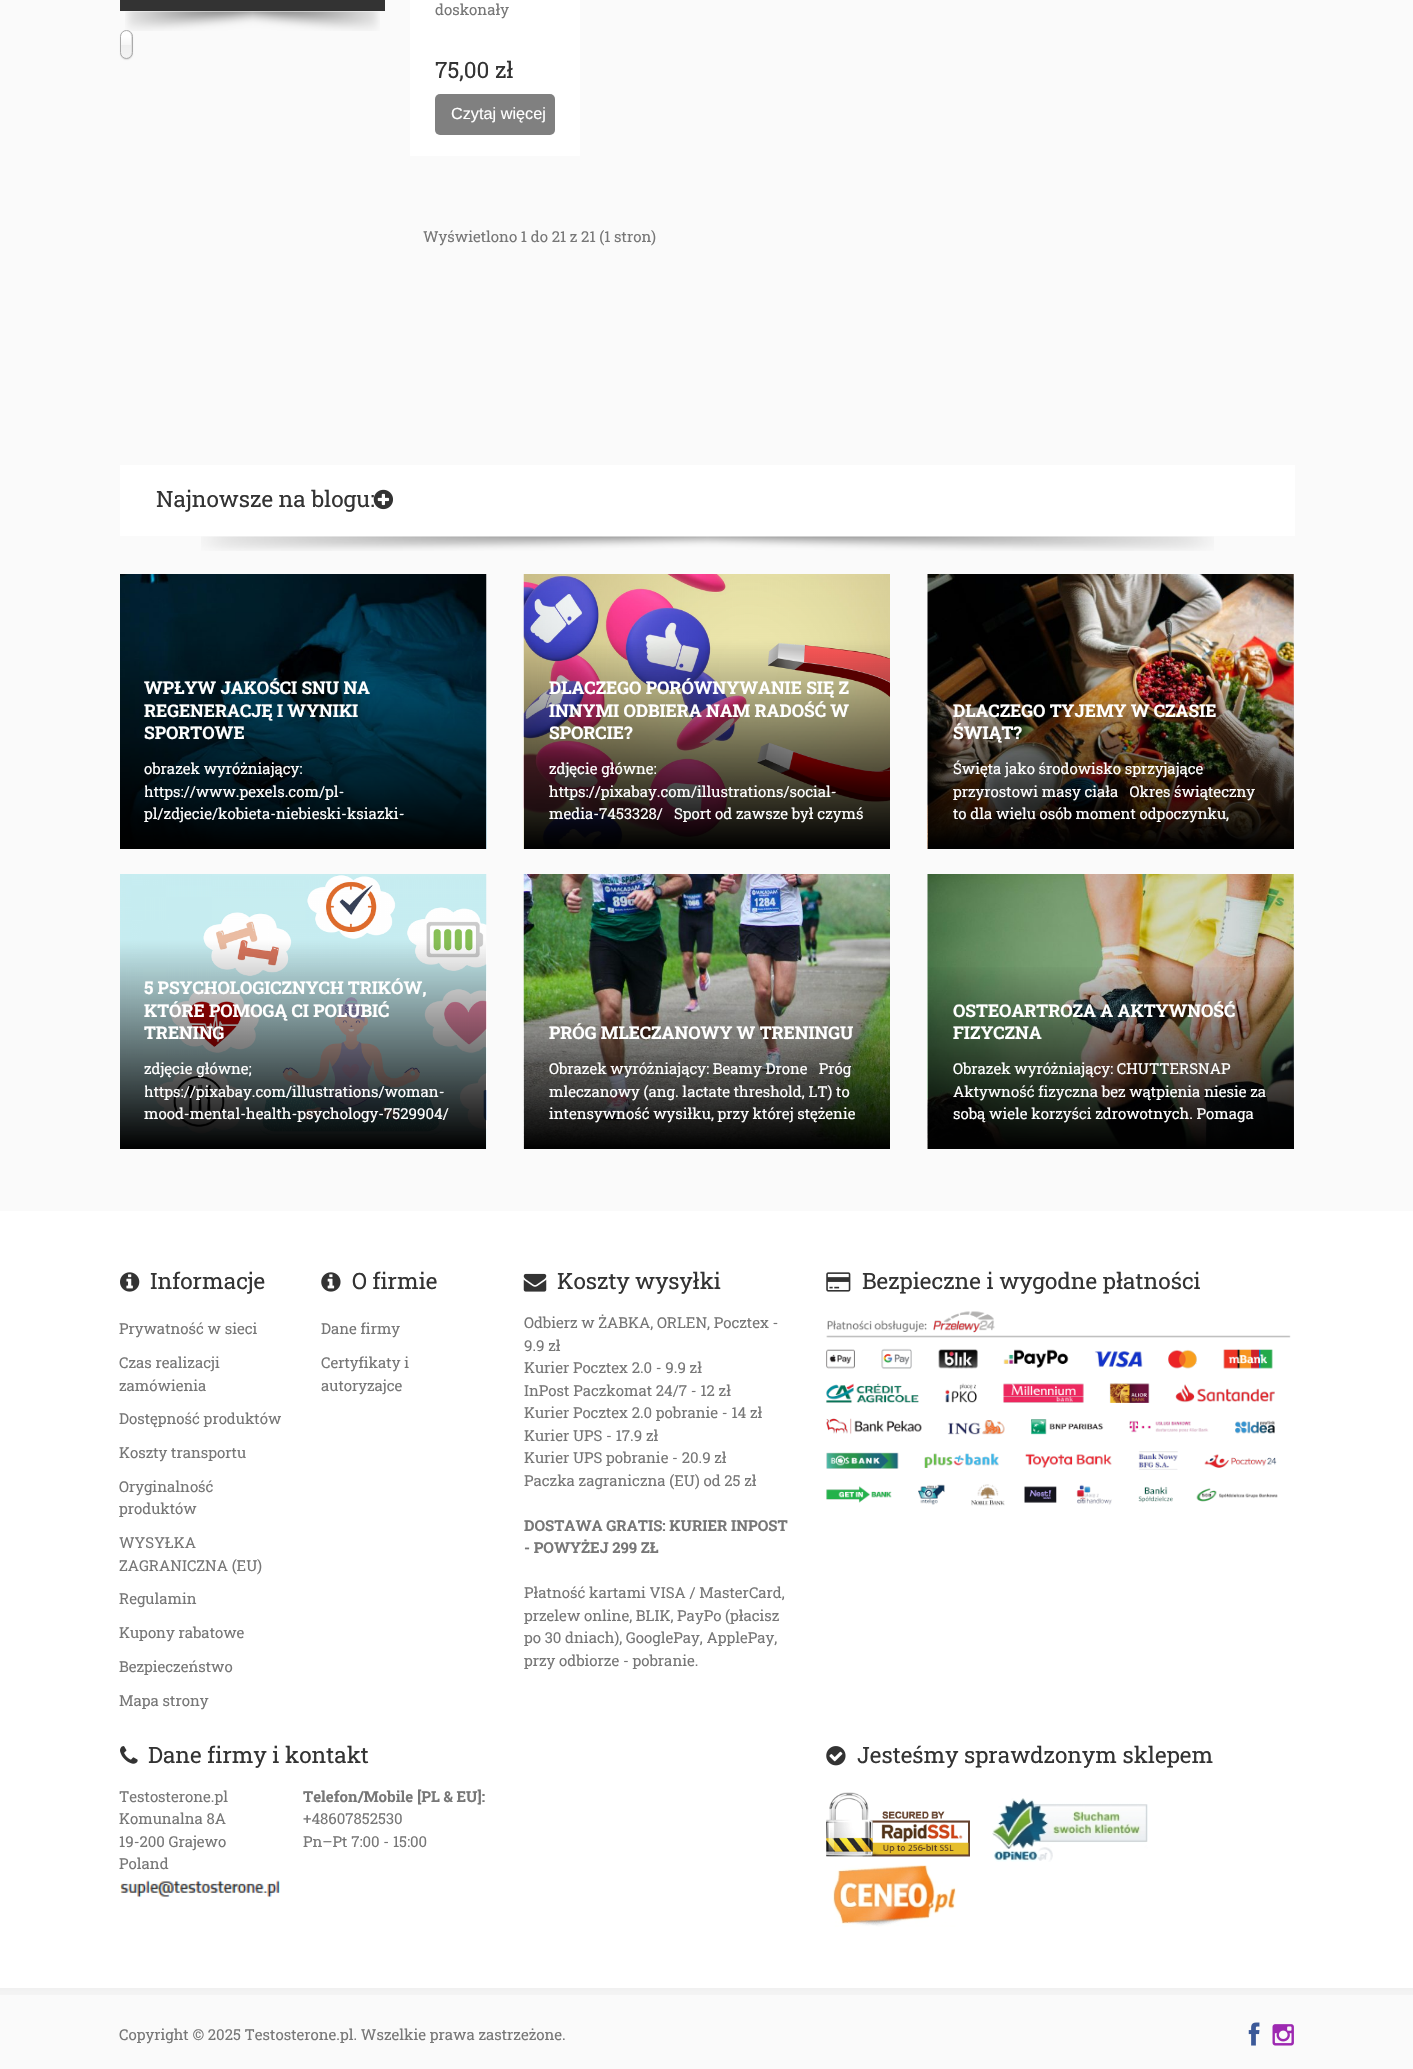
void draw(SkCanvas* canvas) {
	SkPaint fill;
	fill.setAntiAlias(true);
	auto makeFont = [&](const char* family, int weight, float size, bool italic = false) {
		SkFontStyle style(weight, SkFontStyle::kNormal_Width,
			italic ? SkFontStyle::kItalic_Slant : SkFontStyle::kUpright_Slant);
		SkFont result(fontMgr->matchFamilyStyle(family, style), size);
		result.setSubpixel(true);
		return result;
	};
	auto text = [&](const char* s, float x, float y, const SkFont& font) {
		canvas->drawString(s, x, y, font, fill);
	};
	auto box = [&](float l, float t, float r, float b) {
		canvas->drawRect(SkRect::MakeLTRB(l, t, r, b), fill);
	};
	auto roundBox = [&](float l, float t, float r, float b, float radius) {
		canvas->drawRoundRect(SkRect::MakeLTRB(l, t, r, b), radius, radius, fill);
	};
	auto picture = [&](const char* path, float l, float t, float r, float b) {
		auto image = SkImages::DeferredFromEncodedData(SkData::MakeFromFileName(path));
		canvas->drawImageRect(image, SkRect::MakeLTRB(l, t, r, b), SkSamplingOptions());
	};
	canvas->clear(0xFFFAFAFA);
	fill.setColor(0xFF333333);
	box(120, 0, 385, 11);
	picture("image0.png", 125, 11, 380, 31);
	fill.setColor(0x1A000000);
	fill.setMaskFilter(SkMaskFilter::MakeBlur(kNormal_SkBlurStyle, 0.5f));
	canvas->drawRoundRect(SkRect::MakeLTRB(120, 31, 133, 60), 6.5f, 6.5f, fill);
	fill.setMaskFilter(nullptr);
	{
		const SkColor colors[] = {0xFFFFFFFF, 0xFFF6F6F6, 0xFFEEEEEE, 0xFFF4F4F4};
		const float stops[] = {0.2f, 0.5f, 0.52f, 1};
		const SkPoint ends[] = {{126, 31}, {126, 58}};
		fill.setShader(SkGradientShader::MakeLinear(ends, colors, stops, 4, SkTileMode::kClamp));
		fill.setAlpha(255);
	}
	roundBox(121, 31, 131, 58, 5);
	fill.setStyle(SkPaint::kStroke_Style);
	fill.setStrokeWidth(1);
	fill.setShader(nullptr);
	fill.setColor(0xFFAAAAAA);
	canvas->drawRoundRect(SkRect::MakeLTRB(120.5f, 30.5f, 132.5f, 58.5f), 6, 6, fill);
	fill.setStyle(SkPaint::kFill_Style);
	fill.setColor(0xFFFFFFFF);
	box(410, 0, 580, 156);
	fill.setColor(0xFF808080);
	roundBox(435, 94, 555, 135, 5);
	fill.setColor(0xFFFFFFFF);
	box(120, 465, 1295, 536);
	picture("image2.png", 201, 536, 1214, 551);
	picture("image3.png", 120, 574, 487, 849);
	picture("image4.png", 523, 574, 890, 849);
	picture("image5.png", 927, 574, 1294, 849);
	{
		const SkColor colors[] = {0x00000000, 0xFF000000};
		const float stops[] = {0, 1};
		const SkPoint ends[] = {{1111, 663}, {1111, 849}};
		fill.setShader(SkGradientShader::MakeLinear(ends, colors, stops, 2, SkTileMode::kClamp));
		fill.setAlpha(255);
	}
	box(928, 667, 1294, 849);
	picture("image6.png", 120, 874, 487, 1149);
	picture("image7.png", 523, 874, 890, 1149);
	picture("image8.png", 927, 874, 1294, 1149);
	{
		const SkColor colors[] = {0x00000000, 0xFF000000};
		const float stops[] = {0, 1};
		const SkPoint ends[] = {{1111, 963}, {1111, 1149}};
		fill.setShader(SkGradientShader::MakeLinear(ends, colors, stops, 2, SkTileMode::kClamp));
		fill.setAlpha(255);
	}
	box(928, 967, 1294, 1149);
	fill.setShader(nullptr);
	fill.setColor(0xFFFFFFFF);
	box(0, 1211, 1413, 1988);
	picture("image9.png", 120, 1272, 140, 1292);
	picture("image10.png", 321, 1272, 341, 1292);
	picture("image11.png", 523, 1273, 547, 1292);
	picture("image12.png", 826, 1272, 851, 1292);
	picture("image13.png", 826, 1311, 1291, 1506);
	picture("image14.png", 120, 1746, 138, 1764);
	picture("image15.png", 120, 1880, 280, 1897);
	picture("image16.png", 826, 1746, 846, 1766);
	picture("image17.png", 826, 1792, 970, 1857);
	picture("image18.png", 992, 1798, 1148, 1862);
	picture("image19.png", 833, 1865, 956, 1927);
	picture("image20.png", 0, 1988, 1413, 1995);
	picture("image21.png", 1248, 2022, 1260, 2046);
	picture("image22.png", 1272, 2024, 1294, 2046);
	auto font1 = makeFont("Roboto Slab", 400, 15);
	fill.setColor(0xFF777777);
	text("doskonały", 435, 15, font1);
	auto font2 = makeFont("Roboto Slab", 400, 22.5f);
	fill.setColor(0xFF333333);
	text("75,00 zł", 435, 78, font2);
	auto font3 = makeFont("Liberation Sans", 400, 16.25f);
	fill.setColor(0xFFFFFFFF);
	text("Czytaj więcej", 451, 119, font3);
	fill.setColor(0xFF777777);
	text("Wyświetlono 1 do 21 z 21 (1 stron)", 423, 242, font1);
	fill.setColor(0xFF333333);
	text("Najnowsze na blogu:", 156, 507, font2);
	picture("image1.png", 373, 489, 393, 510);
	auto font4 = makeFont("Roboto Slab", 700, 17.5f);
	fill.setColor(0xFFFFFFFF);
	text("WPŁYW JAKOŚCI SNU NA", 144, 694, font4);
	text("REGENERACJĘ I WYNIKI", 144, 717, font4);
	text("SPORTOWE", 144, 739, font4);
	text("obrazek wyróżniający:", 144, 774, font1);
	canvas->save();
	canvas->clipRect(SkRect::MakeLTRB(145, 758, 461, 825));
	text("https://www.pexels.com/pl-", 144, 797, font1);
	canvas->restore();
	text("pl/zdjecie/kobieta-niebieski-ksiazki-", 144, 819, font1);
	text("DLACZEGO PORÓWNYWANIE SIĘ Z", 549, 694, font4);
	text("INNYMI ODBIERA NAM RADOŚĆ W", 549, 717, font4);
	text("SPORCIE?", 549, 739, font4);
	text("zdjęcie główne:", 549, 774, font1);
	text("https://pixabay.com/illustrations/social-", 549, 797, font1);
	text("media-7453328/   Sport od zawsze był czymś", 549, 819, font1);
	text("DLACZEGO TYJEMY W CZASIE", 953, 717, font4);
	text("ŚWIĄT?", 953, 739, font4);
	text("Święta jako środowisko sprzyjające", 953, 774, font1);
	text("przyrostowi masy ciała   Okres świąteczny", 953, 797, font1);
	text("to dla wielu osób moment odpoczynku,", 953, 819, font1);
	text("5 PSYCHOLOGICZNYCH TRIKÓW,", 144, 994, font4);
	text("KTÓRE POMOGĄ CI POLUBIĆ", 144, 1017, font4);
	text("TRENING", 144, 1039, font4);
	text("zdjęcie główne;", 144, 1074, font1);
	canvas->save();
	canvas->clipRect(SkRect::MakeLTRB(145, 1058, 461, 1125));
	text("https://pixabay.com/illustrations/woman-", 144, 1097, font1);
	canvas->restore();
	text("mood-mental-health-psychology-7529904/", 144, 1119, font1);
	text("PRÓG MLECZANOWY W TRENINGU", 549, 1039, font4);
	text("Obrazek wyróżniający: Beamy Drone   Próg", 549, 1074, font1);
	text("mleczanowy (ang. lactate threshold, LT) to", 549, 1097, font1);
	text("intensywność wysiłku, przy której stężenie", 549, 1119, font1);
	text("OSTEOARTROZA A AKTYWNOŚĆ", 953, 1017, font4);
	text("FIZYCZNA", 953, 1039, font4);
	text("Obrazek wyróżniający: CHUTTERSNAP", 953, 1074, font1);
	text("Aktywność fizyczna bez wątpienia niesie za", 953, 1097, font1);
	text("sobą wiele korzyści zdrowotnych. Pomaga", 953, 1119, font1);
	fill.setColor(0xFF333333);
	text("Informacje", 150, 1289, font2);
	fill.setColor(0xFF777777);
	text("Prywatność w sieci", 119, 1334, font1);
	text("Czas realizacji", 119, 1368, font1);
	text("zamówienia", 119, 1391, font1);
	text("Dostępność produktów", 119, 1424, font1);
	text("Koszty transportu", 119, 1458, font1);
	text("Oryginalność", 119, 1492, font1);
	text("produktów", 119, 1514, font1);
	text("WYSYŁKA", 119, 1548, font1);
	text("ZAGRANICZNA (EU)", 119, 1571, font1);
	text("Regulamin", 119, 1604, font1);
	text("Kupony rabatowe", 119, 1638, font1);
	text("Bezpieczeństwo", 119, 1672, font1);
	text("Mapa strony", 119, 1706, font1);
	fill.setColor(0xFF333333);
	text("O firmie", 352, 1289, font2);
	fill.setColor(0xFF777777);
	text("Dane firmy", 321, 1334, font1);
	text("Certyfikaty i", 321, 1368, font1);
	text("autoryzajce", 321, 1391, font1);
	fill.setColor(0xFF333333);
	text("Koszty wysyłki", 557, 1289, font2);
	fill.setColor(0xFF777777);
	text("Odbierz w ŻABKA, ORLEN, Pocztex -", 524, 1328, font1);
	text("9.9 zł", 524, 1351, font1);
	text("Kurier Pocztex 2.0 - 9.9 zł", 524, 1373, font1);
	text("InPost Paczkomat 24/7 - 12 zł", 524, 1396, font1);
	text("Kurier Pocztex 2.0 pobranie - 14 zł", 524, 1418, font1);
	text("Kurier UPS - 17.9 zł", 524, 1441, font1);
	text("Kurier UPS pobranie - 20.9 zł", 524, 1463, font1);
	text("Paczka zagraniczna (EU) od 25 zł", 524, 1486, font1);
	auto font5 = makeFont("Roboto Slab", 700, 15);
	text("DOSTAWA GRATIS: KURIER INPOST", 524, 1531, font5);
	text("- POWYŻEJ 299 ZŁ", 524, 1553, font5);
	text("Płatność kartami VISA / MasterCard,", 524, 1598, font1);
	text("przelew online, BLIK, PayPo (płacisz", 524, 1621, font1);
	text("po 30 dniach), GooglePay, ApplePay,", 524, 1643, font1);
	text("przy odbiorze - pobranie.", 524, 1666, font1);
	fill.setColor(0xFF333333);
	text("Bezpieczne i wygodne płatności", 862, 1289, font2);
	text("Dane firmy i kontakt", 148, 1763, font2);
	fill.setColor(0xFF777777);
	text("Testosterone.pl", 119, 1802, font1);
	text("Komunalna 8A", 119, 1824, font1);
	text("19-200 Grajewo", 119, 1847, font1);
	text("Poland", 119, 1869, font1);
	text("Telefon/Mobile [PL & EU]:", 303, 1802, font5);
	text("+48607852530", 303, 1824, font1);
	text("Pn–Pt 7:00 - 15:00", 303, 1847, font1);
	fill.setColor(0xFF333333);
	text("Jesteśmy sprawdzonym sklepem", 857, 1763, font2);
	fill.setColor(0xFF777777);
	text("Copyright © 2025 Testosterone.pl. Wszelkie prawa zastrzeżone.", 119, 2040, font1);
}
